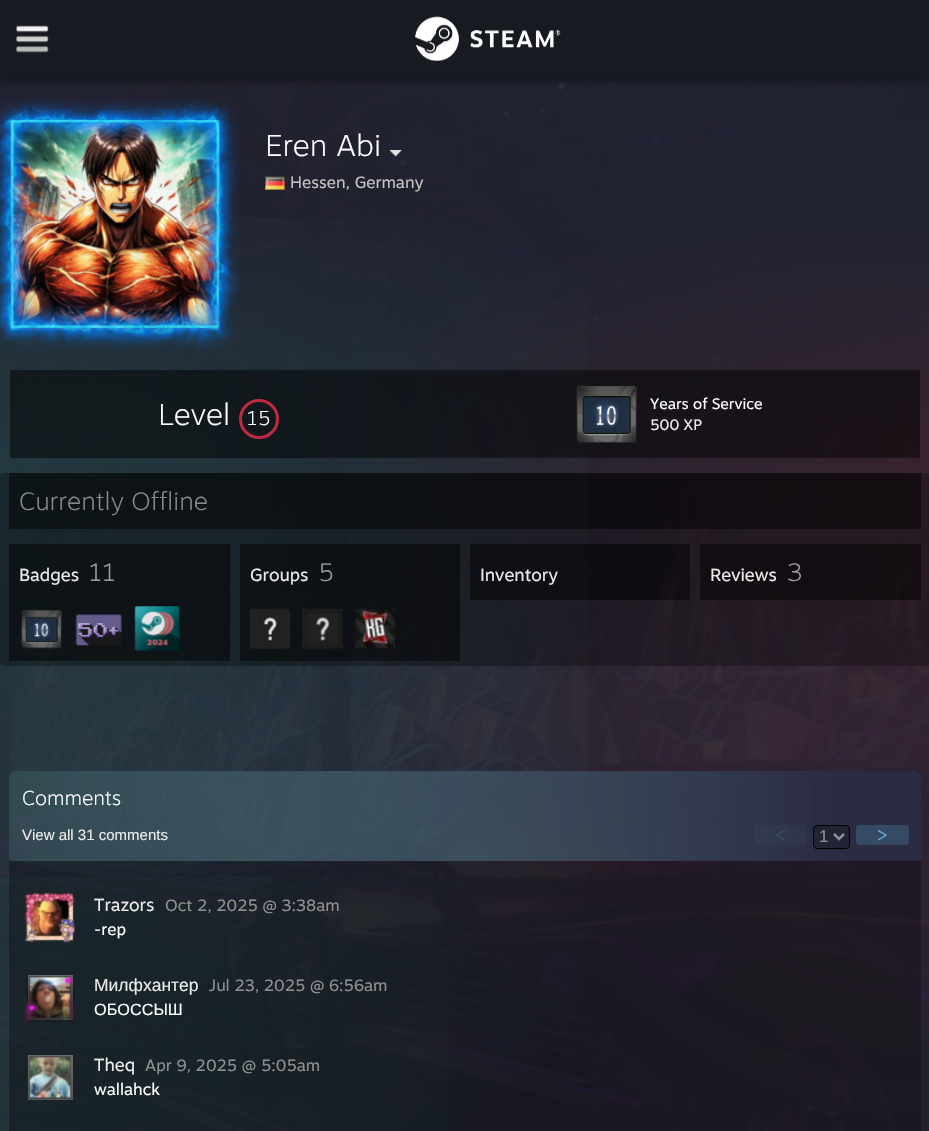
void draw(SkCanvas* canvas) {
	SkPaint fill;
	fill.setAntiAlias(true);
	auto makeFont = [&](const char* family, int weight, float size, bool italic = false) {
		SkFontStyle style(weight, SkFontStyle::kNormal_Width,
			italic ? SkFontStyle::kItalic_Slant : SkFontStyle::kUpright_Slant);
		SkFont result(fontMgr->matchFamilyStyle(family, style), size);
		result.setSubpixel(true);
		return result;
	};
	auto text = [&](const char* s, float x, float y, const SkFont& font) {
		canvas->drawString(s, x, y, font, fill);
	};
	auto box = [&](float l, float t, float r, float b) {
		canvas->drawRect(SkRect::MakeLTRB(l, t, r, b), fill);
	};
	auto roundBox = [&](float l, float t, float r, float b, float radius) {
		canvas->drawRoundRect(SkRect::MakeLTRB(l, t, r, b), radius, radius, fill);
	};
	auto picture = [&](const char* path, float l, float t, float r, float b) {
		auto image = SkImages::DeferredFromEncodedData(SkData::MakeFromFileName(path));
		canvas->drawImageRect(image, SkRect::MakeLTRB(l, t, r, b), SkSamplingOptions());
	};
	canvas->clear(0xFFFFFFFF);
	picture("image2.png", 0, 78, 929, 1131);
	fill.setColor(0xED222330);
	box(0, 78, 929, 458);
	fill.setColor(0xBF000000);
	fill.setMaskFilter(SkMaskFilter::MakeBlur(kNormal_SkBlurStyle, 4.5f));
	canvas->drawRect(SkRect::MakeLTRB(0, 0, 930, 78), fill);
	fill.setMaskFilter(nullptr);
	fill.setColor(0xFF171A21);
	box(0, 0, 929, 78);
	picture("image0.png", 16, 25, 49, 53);
	picture("image1.png", 415, 16, 561, 61);
	{
		const SkColor colors[] = {0x1A32FFC1, 0x0032FFC1};
		const float stops[] = {0, 0.57f};
		SkMatrix m = SkMatrix::Translate(0, 458).preScale(1315, 537);
		fill.setShader(SkGradientShader::MakeRadial({0, 0}, 1, colors, stops, 2, SkTileMode::kClamp, 0, &m));
		fill.setAlpha(255);
	}
	box(0, 218, 588, 458);
	{
		const SkColor colors[] = {0x4D6D262C, 0x006D262C};
		const float stops[] = {0, 0.67f};
		SkMatrix m = SkMatrix::Translate(930, 458).preScale(930, 380);
		fill.setShader(SkGradientShader::MakeRadial({0, 0}, 1, colors, stops, 2, SkTileMode::kClamp, 0, &m));
		fill.setAlpha(255);
	}
	box(372, 230, 929, 458);
	{
		const SkColor colors[] = {0xFF6A6A6A, 0xFF555555};
		const float stops[] = {0.05f, 0.95f};
		const SkPoint ends[] = {{115, 120}, {115, 330}};
		fill.setShader(SkGradientShader::MakeLinear(ends, colors, stops, 2, SkTileMode::kClamp));
		fill.setAlpha(255);
	}
	box(10, 120, 220, 330);
	picture("image4.png", 12, 122, 218, 328);
	picture("image3.png", 0, 100, 240, 350);
	picture("image5.png", 390, 150, 402, 157);
	picture("image6.png", 265, 176, 285, 190);
	fill.setShader(nullptr);
	fill.setColor(0x80000000);
	box(10, 370, 920, 458);
	fill.setStyle(SkPaint::kStroke_Style);
	fill.setStrokeWidth(3);
	fill.setColor(0xFFC02942);
	canvas->drawCircle(259, 419, 18.5f, fill);
	picture("image7.png", 576, 386, 637, 443);
	fill.setStyle(SkPaint::kFill_Style);
	fill.setColor(0xED222330);
	box(0, 458, 929, 1131);
	{
		const SkColor colors[] = {0x1A32FFC1, 0x0032FFC1};
		const float stops[] = {0, 0.57f};
		SkMatrix m = SkMatrix::Translate(0, 1598).preScale(1315, 1612);
		fill.setShader(SkGradientShader::MakeRadial({0, 0}, 1, colors, stops, 2, SkTileMode::kClamp, 0, &m));
		fill.setAlpha(255);
	}
	box(0, 877, 449, 1131);
	{
		const SkColor colors[] = {0x1A32FFC1, 0x0032FFC1};
		const float stops[] = {0, 0.57f};
		SkMatrix m = SkMatrix::Translate(0, 458).preScale(1315, 1612);
		fill.setShader(SkGradientShader::MakeRadial({0, 0}, 1, colors, stops, 2, SkTileMode::kClamp, 0, &m));
		fill.setAlpha(255);
	}
	box(0, 458, 588, 1131);
	{
		const SkColor colors[] = {0x4D6D262C, 0x006D262C};
		const float stops[] = {0, 0.67f};
		SkMatrix m = SkMatrix::Translate(930, 458).preScale(930, 1140);
		fill.setShader(SkGradientShader::MakeRadial({0, 0}, 1, colors, stops, 2, SkTileMode::kClamp, 0, &m));
		fill.setAlpha(255);
	}
	box(372, 458, 929, 1131);
	fill.setShader(nullptr);
	fill.setColor(0x4D000000);
	roundBox(0, 473, 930, 666, 4);
	fill.setColor(0x80000000);
	box(9, 473, 921, 529);
	box(9, 544, 230, 661);
	picture("image8.png", 21, 610, 62, 649);
	picture("image9.png", 75, 614, 122, 646);
	picture("image10.png", 134, 606, 181, 652);
	box(240, 544, 460, 661);
	picture("image11.png", 249, 608, 290, 649);
	picture("image12.png", 302, 608, 343, 649);
	canvas->save();
	canvas->clipRect(SkRect::MakeLTRB(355, 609, 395, 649));
	fill.setColor(0xFF0C0C0C);
	fill.setMaskFilter(SkMaskFilter::MakeBlur(kNormal_SkBlurStyle, 2));
	canvas->drawRect(SkRect::MakeLTRB(358, 611, 398, 651), fill);
	fill.setMaskFilter(nullptr);
	canvas->restore();
	picture("image13.png", 355, 608, 395, 649);
	fill.setColor(0x80000000);
	box(470, 544, 690, 600);
	box(700, 544, 921, 600);
	fill.setColor(0x4D000000);
	roundBox(9, 771, 921, 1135, 4);
	{
		const SkColor colors[] = {0x4073ADB8, 0xED2B2D44};
		const float stops[] = {0, 0.9f};
		const SkPoint ends[] = {{9, 816}, {921, 816}};
		fill.setShader(SkGradientShader::MakeLinear(ends, colors, stops, 2, SkTileMode::kClamp));
		fill.setAlpha(255);
	}
	canvas->drawPath(SkPathBuilder().moveTo(15, 771).lineTo(915, 771).cubicTo(918.5f, 771, 921, 773.5f, 921, 777).lineTo(921, 861).lineTo(9, 861).lineTo(9, 777).cubicTo(9, 773.5f, 11.5f, 771, 15, 771).close().detach(), fill);
	fill.setShader(nullptr);
	fill.setColor(0x0A67C1F5);
	box(755, 825, 806, 845);
	fill.setColor(0xFF222335);
	canvas->drawRoundRect(SkRect::MakeLTRB(813.5f, 825.5f, 849.5f, 848.5f), 3.5f, 3.5f, fill);
	fill.setStyle(SkPaint::kStroke_Style);
	fill.setStrokeWidth(1);
	fill.setColor(0xFF000000);
	canvas->drawRoundRect(SkRect::MakeLTRB(813.5f, 825.5f, 849.5f, 848.5f), 3.5f, 3.5f, fill);
	fill.setStrokeWidth(2.5f);
	fill.setColor(0xFF909090);
	canvas->drawPath(SkPathBuilder().moveTo(834, 834).lineTo(839, 839).lineTo(844, 834).detach(), fill);
	fill.setStyle(SkPaint::kFill_Style);
	fill.setColor(0xFF364A65);
	roundBox(856, 825, 909, 845, 4);
	{
		const SkColor colors[] = {0xFF6A6A6A, 0xFF555555};
		const float stops[] = {0.05f, 0.95f};
		const SkPoint ends[] = {{50, 895}, {50, 940}};
		fill.setShader(SkGradientShader::MakeLinear(ends, colors, stops, 2, SkTileMode::kClamp));
		fill.setAlpha(255);
	}
	box(28, 895, 73, 940);
	picture("image15.png", 29, 897, 70, 937);
	picture("image14.png", 24, 892, 75, 943);
	{
		const SkColor colors[] = {0xFF6A6A6A, 0xFF555555};
		const float stops[] = {0.05f, 0.95f};
		const SkPoint ends[] = {{50, 975}, {50, 1020}};
		fill.setShader(SkGradientShader::MakeLinear(ends, colors, stops, 2, SkTileMode::kClamp));
		fill.setAlpha(255);
	}
	box(28, 975, 73, 1020);
	{
		const SkColor colors[] = {0xFF515151, 0xFF474747};
		const float stops[] = {0.05f, 0.95f};
		const SkPoint ends[] = {{50, 976}, {50, 1019}};
		fill.setShader(SkGradientShader::MakeLinear(ends, colors, stops, 2, SkTileMode::kClamp));
		fill.setAlpha(255);
	}
	box(29, 976, 71, 1019);
	picture("image17.png", 29, 977, 71, 1019);
	picture("image16.png", 24, 974, 75, 1023);
	{
		const SkColor colors[] = {0xFF6A6A6A, 0xFF555555};
		const float stops[] = {0.05f, 0.95f};
		const SkPoint ends[] = {{50, 1055}, {50, 1100}};
		fill.setShader(SkGradientShader::MakeLinear(ends, colors, stops, 2, SkTileMode::kClamp));
		fill.setAlpha(255);
	}
	box(28, 1055, 73, 1100);
	{
		const SkColor colors[] = {0xFF515151, 0xFF474747};
		const float stops[] = {0.05f, 0.95f};
		const SkPoint ends[] = {{50, 1056}, {50, 1099}};
		fill.setShader(SkGradientShader::MakeLinear(ends, colors, stops, 2, SkTileMode::kClamp));
		fill.setAlpha(255);
	}
	box(29, 1056, 71, 1099);
	picture("image18.png", 29, 1057, 71, 1099);
	auto font1 = makeFont("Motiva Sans", 100, 30);
	fill.setShader(nullptr);
	fill.setColor(0xFFFFFFFF);
	text("Eren Abi", 265, 156, font1);
	auto font2 = makeFont("Motiva Sans", 400, 16.25f);
	fill.setColor(0xFFC4C4C4);
	text("Hessen, Germany", 290, 188, font2);
	fill.setColor(0xFFFFFFFF);
	text("Level", 158, 425, font1);
	auto font3 = makeFont("Motiva Sans", 100, 20);
	text("15", 247, 425, font3);
	auto font4 = makeFont("Motiva Sans", 400, 15);
	text("Years of Service", 650, 409, font4);
	fill.setColor(0xFFEBEBEB);
	text("500 XP", 650, 430, font4);
	auto font5 = makeFont("Motiva Sans", 100, 25);
	fill.setColor(0xFF898989);
	text("Currently Offline", 19, 510, font5);
	auto font6 = makeFont("Motiva Sans", 400, 17.5f);
	fill.setColor(0xFFEBEBEB);
	text("Badges", 19, 581, font6);
	fill.setColor(0xFF9B9B9B);
	text("11", 89, 581, font5);
	fill.setColor(0xFFEBEBEB);
	text("Groups", 250, 581, font6);
	fill.setColor(0xFF9B9B9B);
	text("5", 318, 581, font5);
	fill.setColor(0xFFEBEBEB);
	text("Inventory", 480, 581, font6);
	text("Reviews", 710, 581, font6);
	fill.setColor(0xFF9B9B9B);
	text("3", 787, 581, font5);
	fill.setColor(0xFFFFFFFF);
	text("Comments", 22, 805, font3);
	auto font7 = makeFont("Liberation Sans", 400, 15);
	fill.setColor(0xFFEBEBEB);
	text("View all 31 comments", 22, 840, font7);
	fill.setColor(0xFF394E69);
	text("<", 775, 842, font3);
	auto font8 = makeFont("Liberation Sans", 400, 17);
	fill.setColor(0xFF909090);
	text("1", 819, 842, font8);
	fill.setColor(0xFF66C0F4);
	text(">", 876, 842, font3);
	fill.setColor(0xFFEBEBEB);
	text("Trazors", 94, 911, font6);
	fill.setColor(0xFF909090);
	text("Oct 2, 2025 @ 3:38am", 165, 911, font2);
	fill.setColor(0xFFFFFFFF);
	text("-rep", 94, 935, font2);
	auto font9 = makeFont("Liberation Sans", 400, 17.5f);
	fill.setColor(0xFFEBEBEB);
	text("Милфхантер", 94, 991, font9);
	fill.setColor(0xFF909090);
	text("Jul 23, 2025 @ 6:56am", 209, 991, font2);
	auto font10 = makeFont("Liberation Sans", 400, 16.25f);
	fill.setColor(0xFFFFFFFF);
	text("ОБОССЫШ", 94, 1015, font10);
	fill.setColor(0xFFEBEBEB);
	text("Theq", 94, 1071, font6);
	fill.setColor(0xFF909090);
	text("Apr 9, 2025 @ 5:05am", 145, 1071, font2);
	fill.setColor(0xFFFFFFFF);
	text("wallahck", 94, 1095, font2);
}
